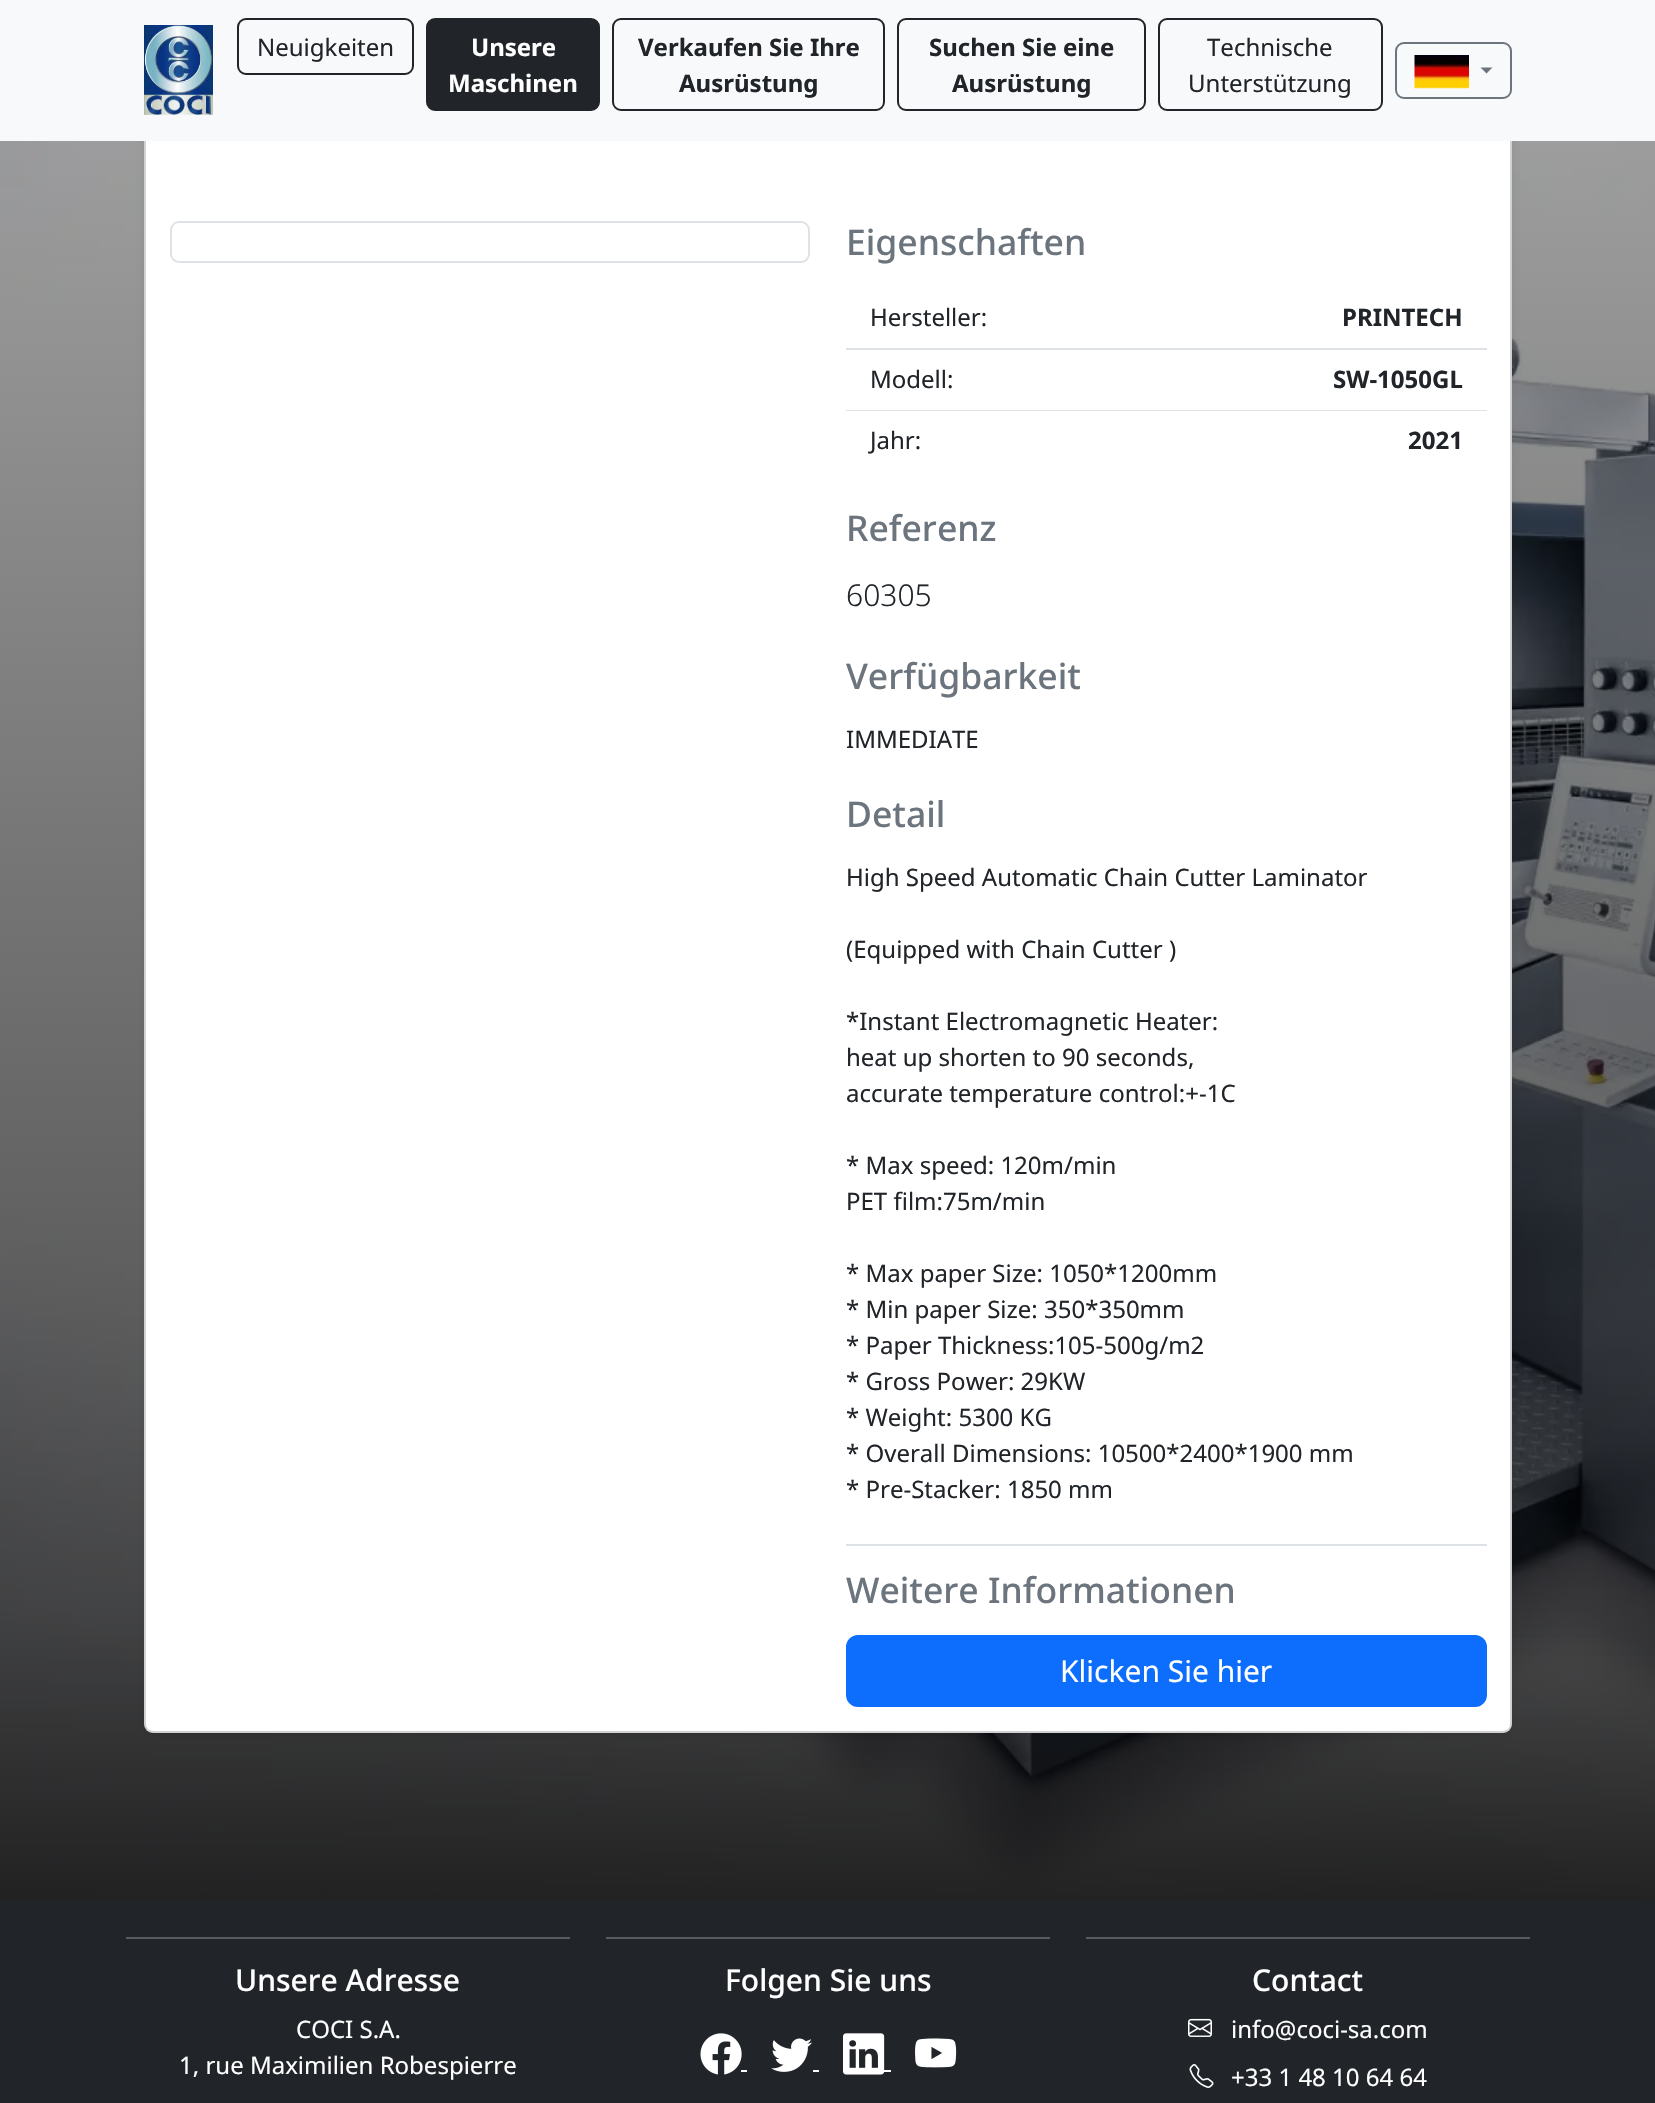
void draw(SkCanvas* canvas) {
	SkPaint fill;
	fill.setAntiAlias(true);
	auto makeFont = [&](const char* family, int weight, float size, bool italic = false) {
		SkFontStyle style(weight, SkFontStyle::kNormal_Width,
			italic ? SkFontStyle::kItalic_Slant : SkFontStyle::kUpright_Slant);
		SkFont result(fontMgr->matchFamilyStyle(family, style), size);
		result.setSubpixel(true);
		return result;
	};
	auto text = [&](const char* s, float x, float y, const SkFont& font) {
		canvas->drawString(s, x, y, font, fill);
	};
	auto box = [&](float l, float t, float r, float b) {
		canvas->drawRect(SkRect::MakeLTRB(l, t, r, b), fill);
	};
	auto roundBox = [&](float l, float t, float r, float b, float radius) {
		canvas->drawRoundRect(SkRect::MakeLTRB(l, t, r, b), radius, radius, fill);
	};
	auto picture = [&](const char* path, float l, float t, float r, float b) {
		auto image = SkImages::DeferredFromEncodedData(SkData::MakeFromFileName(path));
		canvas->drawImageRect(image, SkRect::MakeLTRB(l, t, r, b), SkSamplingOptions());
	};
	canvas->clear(0xFFFFFFFF);
	picture("image0.png", 0, 141, 1655, 1901);
	fill.setColor(0x12000000);
	fill.setMaskFilter(SkMaskFilter::MakeBlur(kNormal_SkBlurStyle, 3));
	canvas->drawRoundRect(SkRect::MakeLTRB(144, 68, 1512, 1736), 9, 9, fill);
	fill.setMaskFilter(nullptr);
	fill.setColor(0xFFFFFFFF);
	roundBox(144, 65, 1512, 1733, 9);
	fill.setStyle(SkPaint::kStroke_Style);
	fill.setStrokeWidth(2);
	fill.setColor(0x2E000000);
	canvas->drawRoundRect(SkRect::MakeLTRB(145, 66, 1511, 1732), 8, 8, fill);
	fill.setStyle(SkPaint::kFill_Style);
	fill.setColor(0xFFF8F9FA);
	box(0, 0, 1655, 141);
	picture("image1.png", 144, 25, 213, 115);
	fill.setStyle(SkPaint::kStroke_Style);
	fill.setColor(0xFF212529);
	canvas->drawRoundRect(SkRect::MakeLTRB(238, 19, 413, 74), 8, 8, fill);
	fill.setStyle(SkPaint::kFill_Style);
	canvas->drawRoundRect(SkRect::MakeLTRB(427, 19, 599, 110), 8, 8, fill);
	fill.setStyle(SkPaint::kStroke_Style);
	canvas->drawRoundRect(SkRect::MakeLTRB(427, 19, 599, 110), 8, 8, fill);
	canvas->drawRoundRect(SkRect::MakeLTRB(613, 19, 884, 110), 8, 8, fill);
	canvas->drawRoundRect(SkRect::MakeLTRB(898, 19, 1145, 110), 8, 8, fill);
	canvas->drawRoundRect(SkRect::MakeLTRB(1159, 19, 1382, 110), 8, 8, fill);
	fill.setColor(0xFF6C757D);
	canvas->drawRoundRect(SkRect::MakeLTRB(1396, 43, 1511, 98), 8, 8, fill);
	picture("image2.png", 1414, 55, 1469, 89);
	fill.setStyle(SkPaint::kFill_Style);
	canvas->drawPath(SkPathBuilder().moveTo(1480.5f, 67.5f).lineTo(1492.5f, 67.5f).lineTo(1486.5f, 73.5f).close().detach(), fill);
	fill.setStyle(SkPaint::kStroke_Style);
	fill.setColor(0xFFDEE2E6);
	canvas->drawRoundRect(SkRect::MakeLTRB(171, 222, 809, 262), 8, 8, fill);
	fill.setStyle(SkPaint::kFill_Style);
	box(846, 348, 1487, 350);
	box(846, 410, 1487, 411);
	box(846, 1544, 1487, 1546);
	fill.setColor(0xFF0D6EFD);
	canvas->drawRoundRect(SkRect::MakeLTRB(847, 1636, 1486, 1706), 11, 11, fill);
	fill.setStyle(SkPaint::kStroke_Style);
	canvas->drawRoundRect(SkRect::MakeLTRB(847, 1636, 1486, 1706), 11, 11, fill);
	fill.setStyle(SkPaint::kFill_Style);
	fill.setColor(0xFF212529);
	box(0, 1901, 1655, 2103);
	fill.setColor(0xFF595C5F);
	box(126, 1937, 570, 1939);
	box(606, 1937, 1050, 1939);
	picture("image3.png", 700, 2033, 742, 2075);
	fill.setColor(0xFFFFFFFF);
	box(741, 2070, 747, 2072);
	picture("image4.png", 771, 2038, 812, 2072);
	box(813, 2070, 819, 2072);
	picture("image5.png", 843, 2033, 885, 2075);
	box(884, 2070, 891, 2072);
	picture("image6.png", 915, 2038, 957, 2068);
	fill.setColor(0xFF595C5F);
	box(1086, 1937, 1530, 1939);
	picture("image7.png", 1188, 2018, 1212, 2037);
	picture("image8.png", 1189, 2064, 1214, 2088);
	auto font1 = makeFont("Noto Sans", 400, 24);
	fill.setColor(0xFF212529);
	text("Neuigkeiten", 257, 56, font1);
	auto font2 = makeFont("Noto Sans", 700, 24);
	fill.setColor(0xFFFFFFFF);
	text("Unsere", 471, 56, font2);
	text("Maschinen", 448, 92, font2);
	fill.setColor(0xFF212529);
	text("Verkaufen Sie Ihre", 638, 56, font2);
	text("Ausrüstung", 679, 92, font2);
	text("Suchen Sie eine", 929, 56, font2);
	text("Ausrüstung", 952, 92, font2);
	text("Technische", 1207, 56, font1);
	text("Unterstützung", 1188, 92, font1);
	auto font3 = makeFont("Noto Sans", 500, 35.5f);
	fill.setColor(0xFF6C757D);
	text("Eigenschaften", 846, 255, font3);
	fill.setColor(0xFF212529);
	text("Hersteller:", 870, 326, font1);
	text("PRINTECH", 1342, 326, font2);
	text("Modell:", 870, 388, font1);
	text("SW-1050GL", 1333, 388, font2);
	text("Jahr:", 870, 449, font1);
	text("2021", 1408, 449, font2);
	fill.setColor(0xFF6C757D);
	text("Referenz", 846, 541, font3);
	auto font4 = makeFont("Noto Sans", 300, 30);
	fill.setColor(0xFF212529);
	text("60305", 846, 606, font4);
	fill.setColor(0xFF6C757D);
	text("Verfügbarkeit", 846, 689, font3);
	fill.setColor(0xFF212529);
	text("IMMEDIATE", 846, 748, font1);
	fill.setColor(0xFF6C757D);
	text("Detail", 846, 827, font3);
	fill.setColor(0xFF212529);
	text("High Speed Automatic Chain Cutter Laminator", 846, 886, font1);
	text("(Equipped with Chain Cutter )", 846, 958, font1);
	text("*Instant Electromagnetic Heater:", 846, 1030, font1);
	text("heat up shorten to 90 seconds,", 846, 1066, font1);
	text("accurate temperature control:+-1C", 846, 1102, font1);
	text("* Max speed: 120m/min", 846, 1174, font1);
	text("PET film:75m/min", 846, 1210, font1);
	text("* Max paper Size: 1050*1200mm", 846, 1282, font1);
	text("* Min paper Size: 350*350mm", 846, 1318, font1);
	text("* Paper Thickness:105-500g/m2", 846, 1354, font1);
	text("* Gross Power: 29KW", 846, 1390, font1);
	text("* Weight: 5300 KG", 846, 1426, font1);
	text("* Overall Dimensions: 10500*2400*1900 mm", 846, 1462, font1);
	text("* Pre-Stacker: 1850 mm", 846, 1498, font1);
	fill.setColor(0xFF6C757D);
	text("Weitere Informationen", 846, 1603, font3);
	auto font5 = makeFont("Noto Sans", 400, 30);
	fill.setColor(0xFFFFFFFF);
	text("Klicken Sie hier", 1060, 1682, font5);
	auto font6 = makeFont("Noto Sans", 500, 30);
	text("Unsere Adresse", 235, 1991, font6);
	text("COCI S.A.", 296, 2038, font1);
	text("1, rue Maximilien Robespierre", 179, 2074, font1);
	text("Folgen Sie uns", 725, 1991, font6);
	text("Contact", 1252, 1991, font6);
	text("info@coci-sa.com", 1231, 2038, font1);
	text("+33 1 48 10 64 64", 1231, 2086, font1);
}
